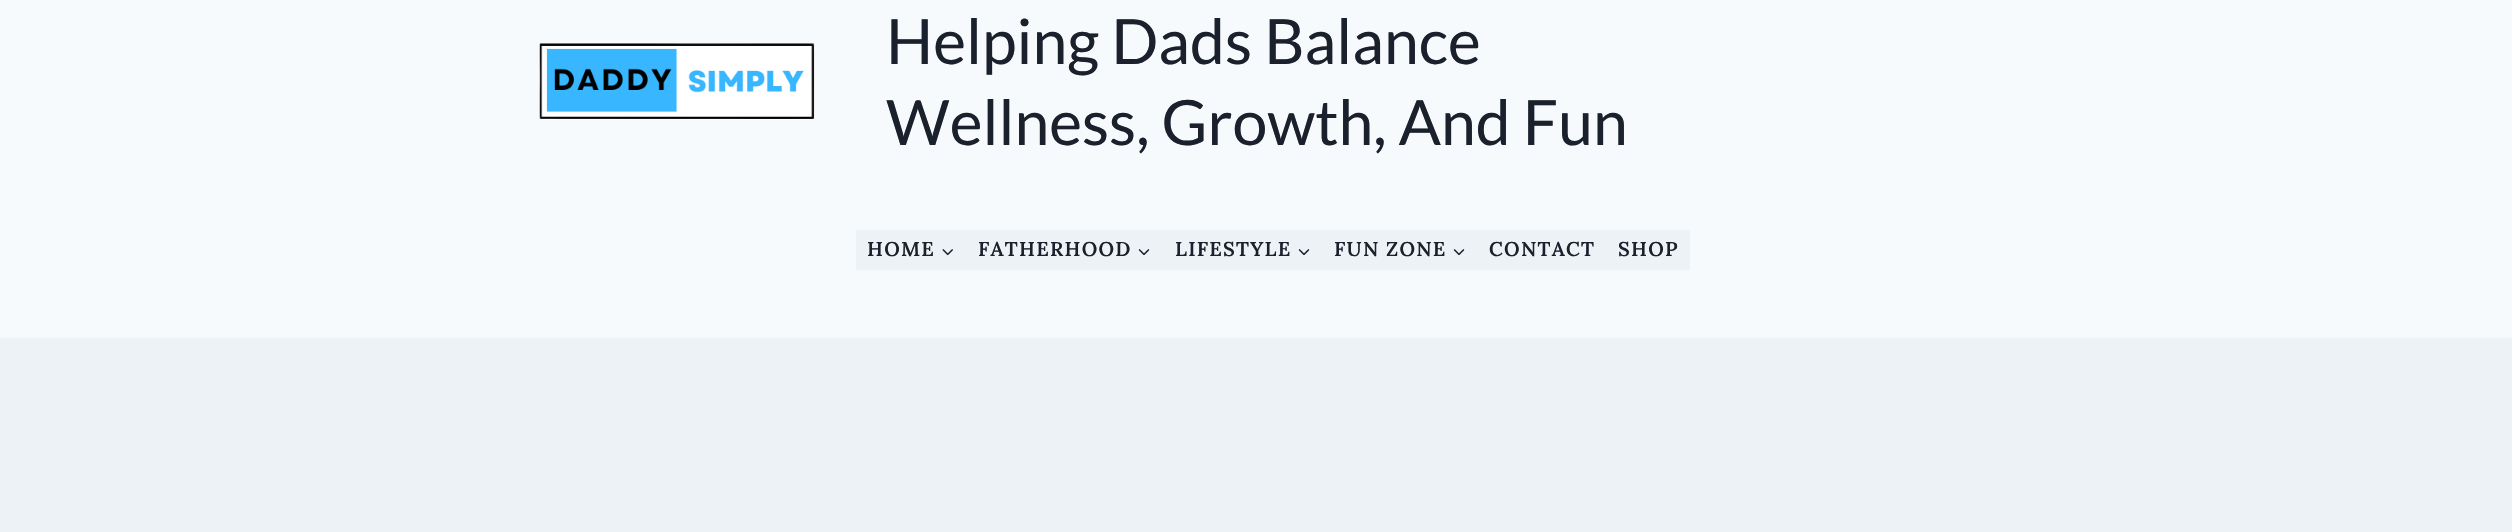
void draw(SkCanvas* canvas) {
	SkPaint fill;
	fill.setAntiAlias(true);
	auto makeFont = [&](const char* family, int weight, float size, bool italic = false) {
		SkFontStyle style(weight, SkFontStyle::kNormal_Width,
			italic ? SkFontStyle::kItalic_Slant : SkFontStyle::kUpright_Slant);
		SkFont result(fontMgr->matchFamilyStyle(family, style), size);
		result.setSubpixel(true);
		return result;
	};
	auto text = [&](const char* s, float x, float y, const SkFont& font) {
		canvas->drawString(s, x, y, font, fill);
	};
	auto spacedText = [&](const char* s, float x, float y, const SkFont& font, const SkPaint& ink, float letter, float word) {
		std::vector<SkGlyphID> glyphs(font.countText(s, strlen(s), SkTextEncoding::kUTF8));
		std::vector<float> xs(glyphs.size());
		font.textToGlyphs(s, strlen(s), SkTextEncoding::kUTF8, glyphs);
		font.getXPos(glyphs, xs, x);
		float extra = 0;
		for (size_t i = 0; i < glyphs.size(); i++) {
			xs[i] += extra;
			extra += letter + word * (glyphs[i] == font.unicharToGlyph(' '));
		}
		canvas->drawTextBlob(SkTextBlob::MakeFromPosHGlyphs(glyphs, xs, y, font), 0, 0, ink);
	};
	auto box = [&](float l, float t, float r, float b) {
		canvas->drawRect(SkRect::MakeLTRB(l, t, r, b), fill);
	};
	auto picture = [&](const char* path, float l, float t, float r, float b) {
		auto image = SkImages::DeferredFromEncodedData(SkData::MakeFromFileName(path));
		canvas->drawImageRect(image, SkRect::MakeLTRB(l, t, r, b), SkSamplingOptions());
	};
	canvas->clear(0xFFEDF2F7);
	fill.setColor(0xFFF7FAFC);
	box(0, 0, 2512, 338);
	picture("image0.png", 539, 43, 815, 120);
	fill.setColor(0xFFEDF2F7);
	box(856, 230, 1690, 270);
	picture("image1.png", 942, 249, 953, 256);
	picture("image2.png", 1138, 249, 1150, 256);
	picture("image2.png", 1298, 249, 1310, 256);
	picture("image2.png", 1453, 249, 1465, 256);
	auto font1 = makeFont("Lato", 400, 62.5f);
	fill.setColor(0xFF1A202C);
	text("Helping Dads Balance", 886, 64, font1);
	text("Wellness, Growth, And Fun", 886, 145, font1);
	auto font2 = makeFont("Lora", 600, 20);
	spacedText("HOME", 867, 256, font2, fill, 1.25f, 0);
	spacedText("FATHERHOOD", 978, 256, font2, fill, 1.25f, 0);
	spacedText("LIFESTYLE", 1175, 256, font2, fill, 1.25f, 0);
	spacedText("FUN ZONE", 1334, 256, font2, fill, 1.25f, 0);
	spacedText("CONTACT", 1489, 256, font2, fill, 1.25f, 0);
	spacedText("SHOP", 1618, 256, font2, fill, 1.25f, 0);
}
